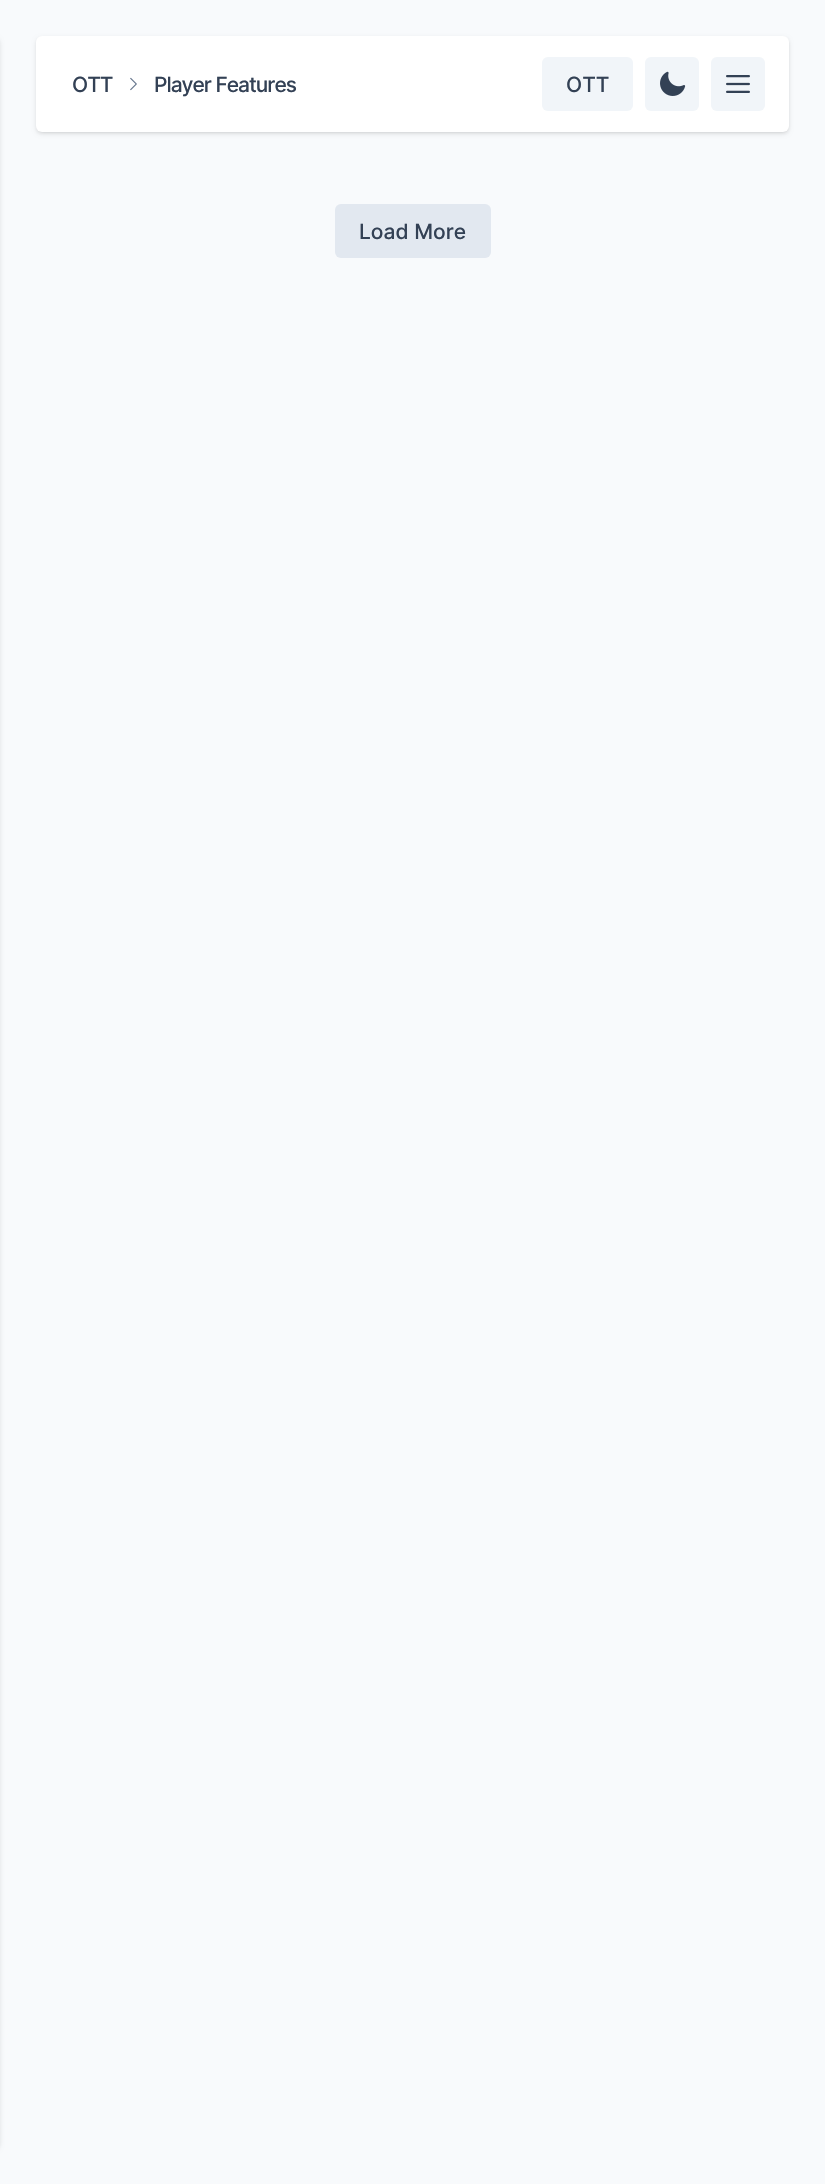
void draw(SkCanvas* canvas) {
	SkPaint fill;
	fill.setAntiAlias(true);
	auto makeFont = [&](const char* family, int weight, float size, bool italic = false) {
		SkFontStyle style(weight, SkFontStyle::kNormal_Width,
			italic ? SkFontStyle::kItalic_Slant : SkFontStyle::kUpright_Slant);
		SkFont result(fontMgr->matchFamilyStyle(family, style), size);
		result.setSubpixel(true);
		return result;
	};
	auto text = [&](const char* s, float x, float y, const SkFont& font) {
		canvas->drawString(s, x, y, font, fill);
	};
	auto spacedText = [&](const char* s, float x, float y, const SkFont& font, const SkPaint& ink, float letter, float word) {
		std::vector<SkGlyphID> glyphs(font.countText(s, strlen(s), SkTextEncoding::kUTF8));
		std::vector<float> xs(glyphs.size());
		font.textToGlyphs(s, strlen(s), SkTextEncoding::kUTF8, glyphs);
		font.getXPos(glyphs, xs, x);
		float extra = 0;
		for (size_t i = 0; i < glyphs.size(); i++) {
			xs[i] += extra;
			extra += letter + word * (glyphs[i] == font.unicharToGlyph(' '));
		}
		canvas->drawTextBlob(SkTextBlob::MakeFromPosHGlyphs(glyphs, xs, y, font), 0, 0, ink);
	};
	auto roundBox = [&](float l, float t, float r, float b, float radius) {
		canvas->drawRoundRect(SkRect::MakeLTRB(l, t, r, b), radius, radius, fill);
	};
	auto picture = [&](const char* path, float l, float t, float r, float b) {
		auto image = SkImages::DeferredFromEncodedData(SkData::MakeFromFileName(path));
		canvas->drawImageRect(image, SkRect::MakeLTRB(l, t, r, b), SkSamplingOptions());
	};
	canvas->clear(0xFFF8FAFC);
	fill.setColor(0x1A000000);
	fill.setMaskFilter(SkMaskFilter::MakeBlur(kNormal_SkBlurStyle, 2));
	canvas->drawRoundRect(SkRect::MakeLTRB(-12, 38, 0, 2150), 6, 6, fill);
	fill.setMaskFilter(nullptr);
	fill.setMaskFilter(SkMaskFilter::MakeBlur(kNormal_SkBlurStyle, 1.5f));
	canvas->drawRoundRect(SkRect::MakeLTRB(38, 39, 788, 132), 5, 5, fill);
	fill.setMaskFilter(nullptr);
	fill.setMaskFilter(SkMaskFilter::MakeBlur(kNormal_SkBlurStyle, 2));
	canvas->drawRoundRect(SkRect::MakeLTRB(36, 38, 789, 134), 6, 6, fill);
	fill.setMaskFilter(nullptr);
	fill.setColor(0xFFFFFFFF);
	roundBox(36, 36, 789, 132, 6);
	picture("image0.png", 130, 77, 137, 91);
	fill.setColor(0xFFF1F5F9);
	roundBox(542, 57, 633, 111, 6);
	roundBox(645, 57, 699, 111, 6);
	picture("image1.png", 660, 71, 686, 96);
	roundBox(711, 57, 765, 111, 6);
	picture("image2.png", 726, 75, 750, 93);
	fill.setColor(0xFFE2E8F0);
	roundBox(335, 204, 491, 258, 6);
	auto font1 = makeFont("Inter", 500, 21);
	fill.setColor(0xFF334155);
	spacedText("OTT", 72, 92, font1, fill, -1, 0);
	spacedText("Player Features", 154, 92, font1, fill, -1, 0);
	text("OTT", 566, 92, font1);
	text("Load More", 359, 239, font1);
}
